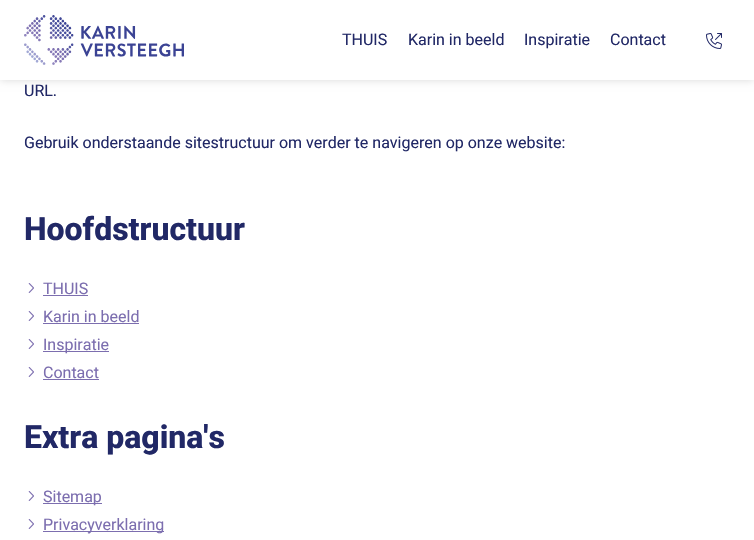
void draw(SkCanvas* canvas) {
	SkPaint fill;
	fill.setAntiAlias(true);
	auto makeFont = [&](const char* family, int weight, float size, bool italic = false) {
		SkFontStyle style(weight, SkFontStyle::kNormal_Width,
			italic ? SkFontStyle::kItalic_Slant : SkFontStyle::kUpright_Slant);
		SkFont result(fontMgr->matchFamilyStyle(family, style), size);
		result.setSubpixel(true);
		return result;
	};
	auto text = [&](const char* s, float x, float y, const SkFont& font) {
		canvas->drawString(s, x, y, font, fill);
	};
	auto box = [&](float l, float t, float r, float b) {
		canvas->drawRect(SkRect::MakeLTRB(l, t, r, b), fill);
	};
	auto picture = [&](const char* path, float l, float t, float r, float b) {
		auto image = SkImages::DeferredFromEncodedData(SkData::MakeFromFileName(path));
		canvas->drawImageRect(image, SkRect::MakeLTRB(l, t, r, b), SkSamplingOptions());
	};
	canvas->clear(0xFFFFFFFF);
	fill.setColor(0x26000000);
	fill.setMaskFilter(SkMaskFilter::MakeBlur(kNormal_SkBlurStyle, 4));
	canvas->drawRect(SkRect::MakeLTRB(0, 0, 754, 80), fill);
	fill.setMaskFilter(nullptr);
	fill.setColor(0xFFFFFFFF);
	box(0, 0, 754, 80);
	picture("image0.png", 24, 15, 184, 65);
	picture("image1.png", 706, 33, 722, 49);
	picture("image2.png", 28, 283, 34, 293);
	fill.setColor(0xFF7C6EAF);
	box(43, 295, 88, 296);
	picture("image2.png", 28, 311, 34, 321);
	box(43, 323, 139, 324);
	picture("image2.png", 28, 339, 34, 349);
	box(43, 351, 109, 352);
	picture("image2.png", 28, 367, 34, 377);
	box(43, 379, 99, 380);
	picture("image2.png", 28, 491, 34, 501);
	box(43, 503, 102, 504);
	picture("image2.png", 28, 519, 34, 529);
	box(43, 531, 164, 532);
	auto font1 = makeFont("Roboto", 400, 16);
	fill.setColor(0xFF212866);
	text("THUIS", 342, 45, font1);
	text("Karin in beeld", 408, 45, font1);
	text("Inspiratie", 524, 45, font1);
	text("Contact", 610, 45, font1);
	text("URL.", 24, 96, font1);
	text("Gebruik onderstaande sitestructuur om verder te navigeren op onze website:", 24, 148, font1);
	auto font2 = makeFont("Roboto", 800, 32);
	text("Hoofdstructuur", 24, 240, font2);
	fill.setColor(0xFF7C6EAF);
	text("THUIS", 43, 294, font1);
	text("Karin in beeld", 43, 322, font1);
	text("Inspiratie", 43, 350, font1);
	text("Contact", 43, 378, font1);
	fill.setColor(0xFF212866);
	text("Extra pagina's", 24, 448, font2);
	fill.setColor(0xFF7C6EAF);
	text("Sitemap", 43, 502, font1);
	text("Privacyverklaring", 43, 530, font1);
}
